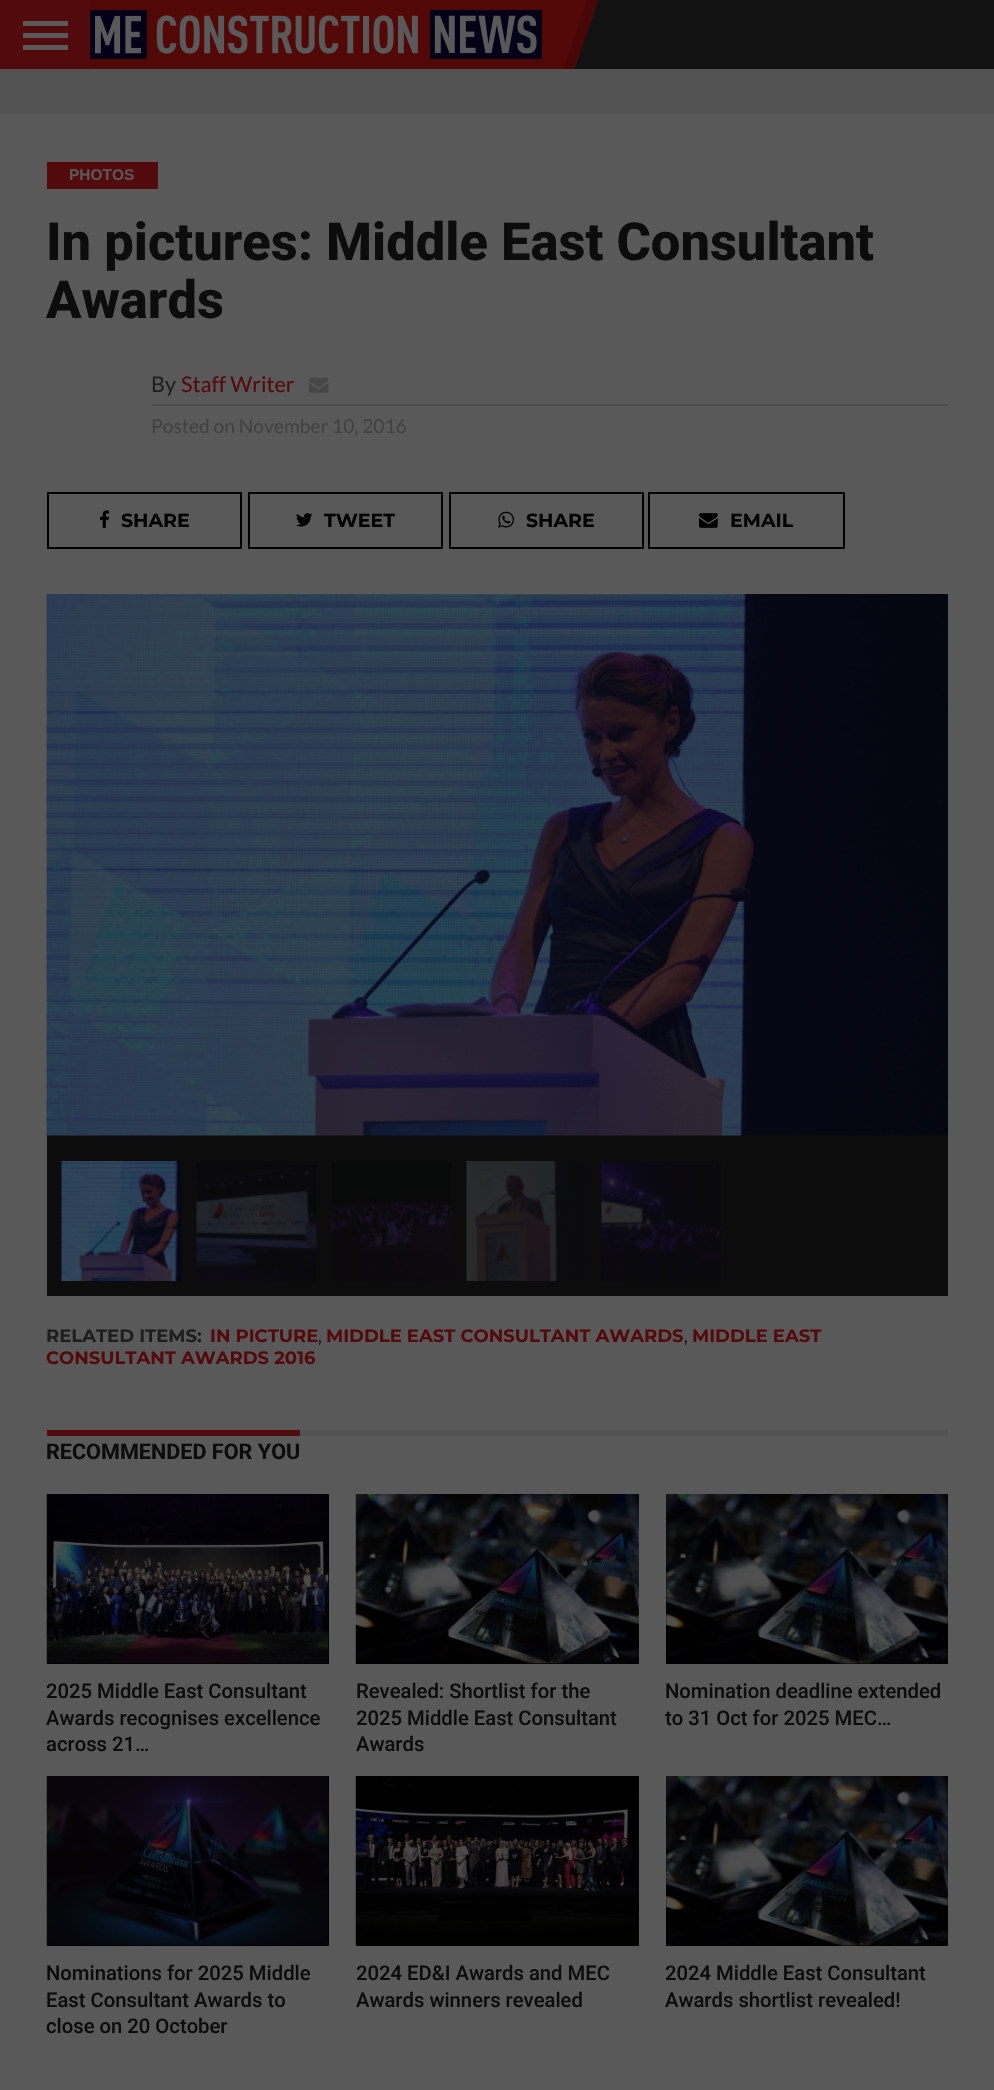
void draw(SkCanvas* canvas) {
	SkPaint fill;
	fill.setAntiAlias(true);
	auto makeFont = [&](const char* family, int weight, float size, bool italic = false) {
		SkFontStyle style(weight, SkFontStyle::kNormal_Width,
			italic ? SkFontStyle::kItalic_Slant : SkFontStyle::kUpright_Slant);
		SkFont result(fontMgr->matchFamilyStyle(family, style), size);
		result.setSubpixel(true);
		return result;
	};
	auto text = [&](const char* s, float x, float y, const SkFont& font) {
		canvas->drawString(s, x, y, font, fill);
	};
	auto box = [&](float l, float t, float r, float b) {
		canvas->drawRect(SkRect::MakeLTRB(l, t, r, b), fill);
	};
	auto picture = [&](const char* path, float l, float t, float r, float b) {
		auto image = SkImages::DeferredFromEncodedData(SkData::MakeFromFileName(path));
		canvas->drawImageRect(image, SkRect::MakeLTRB(l, t, r, b), SkSamplingOptions());
	};
	canvas->clear(0xFF535353);
	fill.setColor(0xFF121212);
	box(574, 0, 994, 69);
	fill.setColor(0xFF530A0C);
	box(0, 0, 90, 69);
	fill.setColor(0xFF595959);
	box(23, 21, 68, 26);
	box(23, 33, 68, 38);
	box(23, 45, 68, 50);
	picture("image0.png", 90, 0, 599, 69);
	box(0, 114, 994, 2090);
	fill.setColor(0xFF530A0C);
	box(47, 162, 158, 189);
	fill.setColor(0xFF4D4D4D);
	box(152, 404, 948, 406);
	picture("image1.png", 309, 377, 329, 393);
	fill.setStyle(SkPaint::kStroke_Style);
	fill.setStrokeWidth(2);
	fill.setColor(0xFF000000);
	canvas->drawRect(SkRect::MakeLTRB(48, 493, 241, 548), fill);
	picture("image2.png", 100, 510, 110, 528);
	canvas->drawRect(SkRect::MakeLTRB(249, 493, 442, 548), fill);
	picture("image3.png", 296, 513, 313, 527);
	canvas->drawRect(SkRect::MakeLTRB(450, 493, 643, 548), fill);
	picture("image4.png", 498, 511, 515, 528);
	canvas->drawRect(SkRect::MakeLTRB(649, 493, 844, 548), fill);
	picture("image5.png", 699, 513, 718, 528);
	fill.setStyle(SkPaint::kFill_Style);
	fill.setColor(0xFF0C0C0C);
	box(47, 594, 948, 1296);
	picture("image6.png", 46, 594, 948, 1136);
	picture("image7.png", 61, 1161, 182, 1281);
	picture("image8.png", 196, 1161, 317, 1281);
	picture("image9.png", 331, 1161, 452, 1281);
	picture("image10.png", 466, 1161, 586, 1281);
	picture("image11.png", 601, 1161, 722, 1281);
	fill.setColor(0xFF535353);
	box(300, 1430, 948, 1436);
	fill.setColor(0xFF530A0C);
	box(47, 1430, 300, 1436);
	fill.setColor(0xFF000000);
	box(47, 1494, 329, 1664);
	picture("image12.png", 46, 1494, 329, 1664);
	box(356, 1494, 639, 1664);
	picture("image13.png", 355, 1494, 639, 1664);
	box(666, 1494, 948, 1664);
	picture("image14.png", 666, 1494, 948, 1664);
	box(47, 1776, 329, 1946);
	picture("image15.png", 46, 1776, 329, 1946);
	box(356, 1776, 639, 1946);
	picture("image16.png", 355, 1776, 639, 1946);
	box(666, 1776, 948, 1946);
	picture("image14.png", 666, 1776, 948, 1946);
	auto font1 = makeFont("Liberation Sans", 700, 15.5f);
	fill.setColor(0xFF595959);
	text("PHOTOS", 69, 180, font1);
	auto font2 = makeFont("Roboto", 800, 52.5f);
	fill.setColor(0xFF0C0C0C);
	text("In pictures: Middle East Consultant", 46, 260, font2);
	text("Awards", 46, 318, font2);
	auto font3 = makeFont("Lato", 400, 21.6f);
	fill.setColor(0xFF1E1E1E);
	text("By", 151, 392, font3);
	fill.setColor(0xFF530A0C);
	text("Staff Writer", 181, 392, font3);
	auto font4 = makeFont("Lato", 400, 19.25f);
	fill.setColor(0xFF414141);
	text("Posted on November 10, 2016", 151, 433, font4);
	auto font5 = makeFont("Montserrat", 700, 19);
	fill.setColor(0xFF000000);
	text("SHARE", 121, 527, font5);
	text("TWEET", 324, 527, font5);
	text("SHARE", 526, 527, font5);
	text("EMAIL", 730, 527, font5);
	auto font6 = makeFont("Montserrat", 700, 18);
	fill.setColor(0xFF1E1E1E);
	text("RELATED ITEMS:", 46, 1342, font6);
	fill.setColor(0xFF530A0C);
	text("IN PICTURE", 210, 1342, font6);
	auto font7 = makeFont("Montserrat", 400, 18);
	fill.setColor(0xFF0C0C0C);
	text(",", 318, 1342, font7);
	fill.setColor(0xFF530A0C);
	text("MIDDLE EAST CONSULTANT AWARDS", 326, 1342, font6);
	fill.setColor(0xFF0C0C0C);
	text(",", 684, 1342, font7);
	fill.setColor(0xFF530A0C);
	text("MIDDLE EAST", 692, 1342, font6);
	text("CONSULTANT AWARDS 2016", 46, 1364, font6);
	auto font8 = makeFont("Roboto", 700, 21.6f);
	fill.setColor(0xFF0C0C0C);
	text("RECOMMENDED FOR YOU", 46, 1459, font8);
	auto font9 = makeFont("Roboto", 500, 20.25f);
	text("2025 Middle East Consultant", 46, 1698, font9);
	text("Awards recognises excellence", 46, 1725, font9);
	text("across 21…", 46, 1751, font9);
	text("Revealed: Shortlist for the", 356, 1698, font9);
	text("2025 Middle East Consultant", 356, 1725, font9);
	text("Awards", 356, 1751, font9);
	text("Nomination deadline extended", 665, 1698, font9);
	text("to 31 Oct for 2025 MEC…", 665, 1725, font9);
	text("Nominations for 2025 Middle", 46, 1980, font9);
	text("East Consultant Awards to", 46, 2007, font9);
	text("close on 20 October", 46, 2033, font9);
	text("2024 ED&I Awards and MEC", 356, 1980, font9);
	text("Awards winners revealed", 356, 2007, font9);
	text("2024 Middle East Consultant", 665, 1980, font9);
	text("Awards shortlist revealed!", 665, 2007, font9);
}
